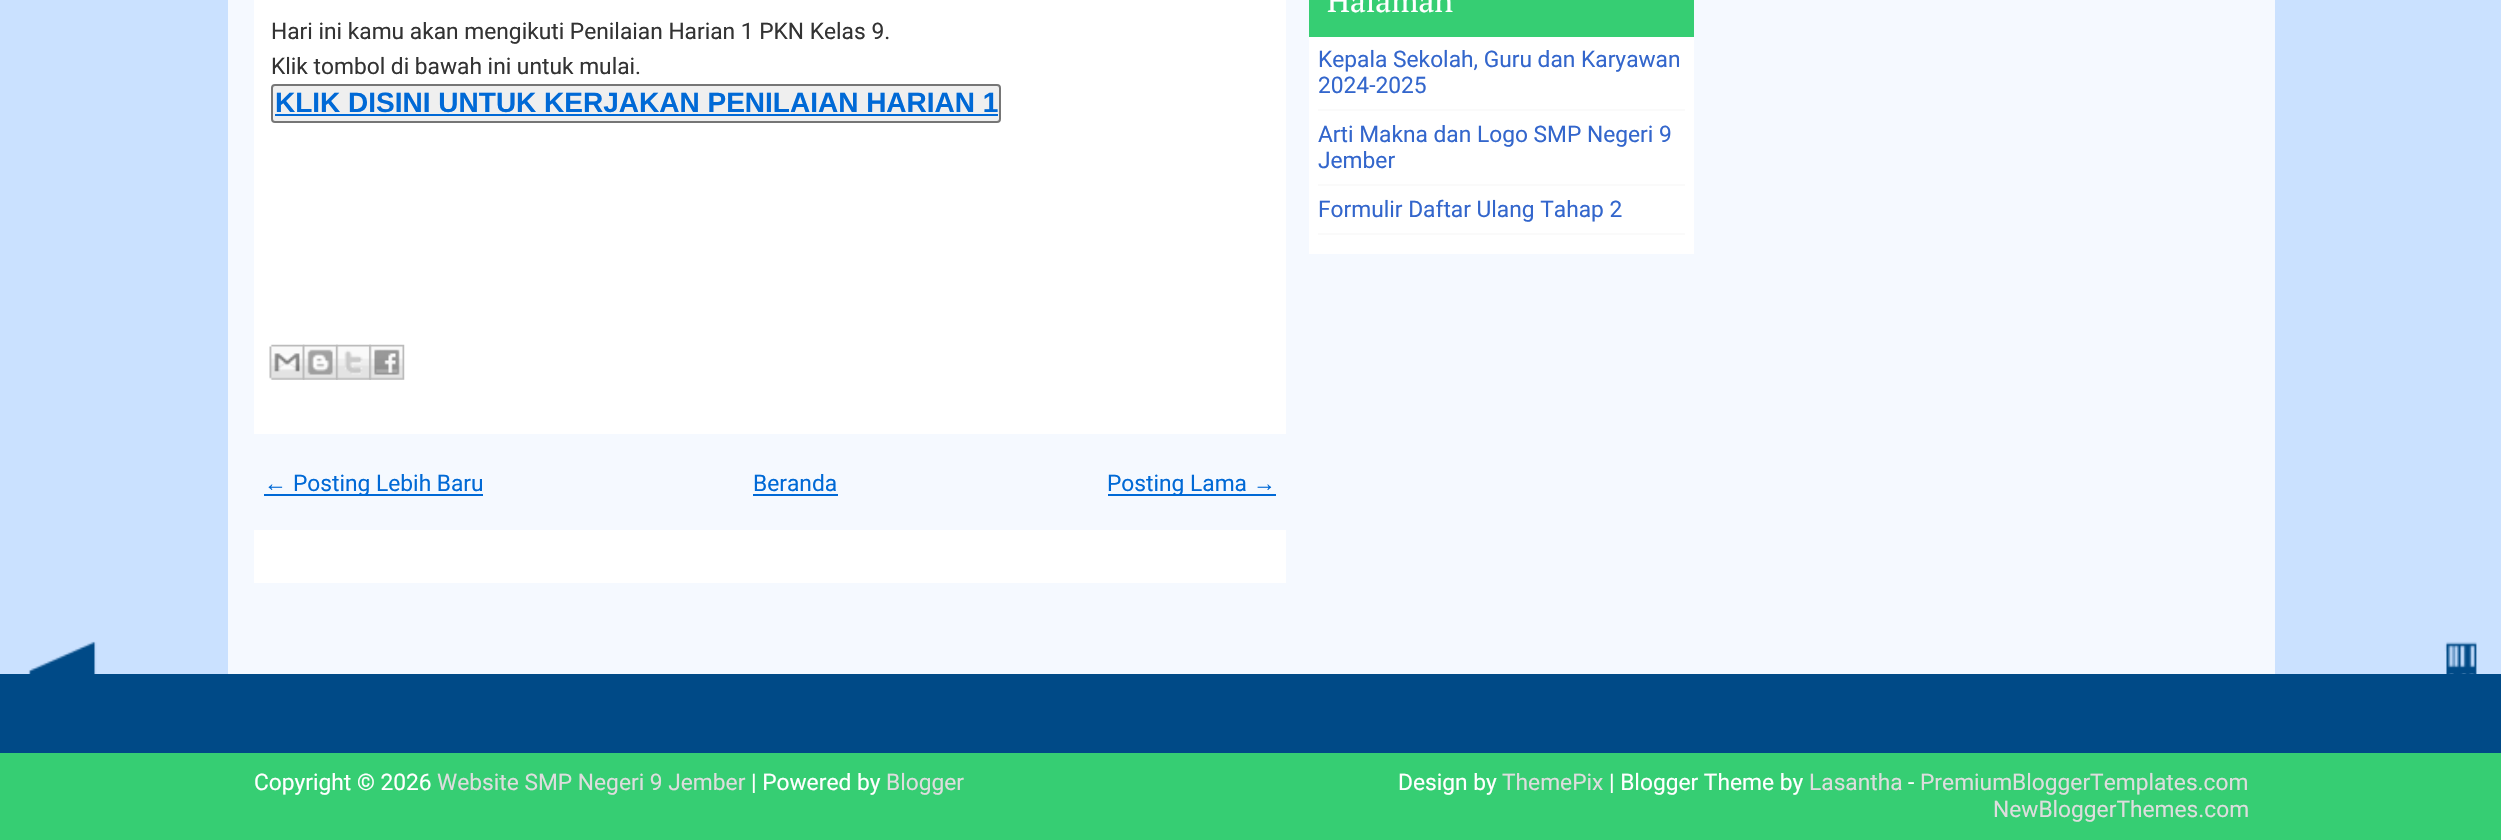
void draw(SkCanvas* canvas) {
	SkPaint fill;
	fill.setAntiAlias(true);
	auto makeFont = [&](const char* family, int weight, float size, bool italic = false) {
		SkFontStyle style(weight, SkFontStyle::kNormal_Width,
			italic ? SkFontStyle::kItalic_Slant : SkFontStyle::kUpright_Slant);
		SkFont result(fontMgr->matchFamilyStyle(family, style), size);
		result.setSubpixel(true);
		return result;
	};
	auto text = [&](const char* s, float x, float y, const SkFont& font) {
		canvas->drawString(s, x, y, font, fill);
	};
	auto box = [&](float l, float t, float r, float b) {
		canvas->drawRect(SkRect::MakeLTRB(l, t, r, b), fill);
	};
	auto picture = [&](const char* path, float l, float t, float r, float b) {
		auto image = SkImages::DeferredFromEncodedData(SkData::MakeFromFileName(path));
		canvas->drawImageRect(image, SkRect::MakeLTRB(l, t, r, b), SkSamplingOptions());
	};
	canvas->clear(0xFFCAE1FF);
	picture("image0.png", 28, 641, 2477, 674);
	fill.setColor(0xFFF5F9FF);
	box(228, 0, 2275, 674);
	fill.setColor(0xFFFFFFFF);
	box(254, 0, 1286, 434);
	fill.setColor(0xFFEFEFEF);
	canvas->drawRoundRect(SkRect::MakeLTRB(272, 85, 1000, 122), 3, 3, fill);
	fill.setStyle(SkPaint::kStroke_Style);
	fill.setStrokeWidth(2);
	fill.setColor(0xFF767676);
	canvas->drawRoundRect(SkRect::MakeLTRB(272, 85, 1000, 122), 3, 3, fill);
	fill.setStyle(SkPaint::kFill_Style);
	fill.setColor(0xFF0069D6);
	box(275, 114, 998, 116);
	picture("image1.png", 269, 344, 305, 380);
	picture("image2.png", 302, 344, 338, 380);
	picture("image3.png", 336, 344, 371, 380);
	picture("image4.png", 369, 344, 405, 380);
	box(264, 494, 483, 496);
	box(753, 494, 838, 496);
	box(1108, 494, 1276, 496);
	fill.setColor(0xFFFFFFFF);
	box(254, 530, 1286, 583);
	box(1309, 37, 1694, 254);
	fill.setColor(0xFF36CE73);
	box(1309, 0, 1694, 37);
	fill.setColor(0xFFFAFAFA);
	box(1318, 109, 1685, 111);
	box(1318, 184, 1685, 186);
	box(1318, 233, 1685, 235);
	fill.setColor(0xFF004A87);
	box(0, 674, 2501, 753);
	fill.setColor(0xFF36CE73);
	box(0, 753, 2501, 840);
	auto font1 = makeFont("Roboto", 400, 22.75f);
	fill.setColor(0xFF333333);
	text("Hari ini kamu akan mengikuti Penilaian Harian 1 PKN Kelas 9.", 271, 39, font1);
	text("Klik tombol di bawah ini untuk mulai.", 271, 74, font1);
	auto font2 = makeFont("Liberation Sans", 700, 28);
	fill.setColor(0xFF0069D6);
	text("KLIK DISINI UNTUK KERJAKAN PENILAIAN HARIAN 1", 275, 112, font2);
	auto font3 = makeFont("Liberation Sans", 400, 22.75f);
	text("←", 264, 491, font3);
	text("Posting Lebih Baru", 293, 491, font1);
	text("Beranda", 753, 491, font1);
	text("Posting Lama", 1107, 491, font1);
	text("→", 1253, 491, font3);
	auto font4 = makeFont("PT Serif", 400, 31.5f);
	fill.setColor(0xFFFFFFFF);
	text("Halaman", 1327, 12, font4);
	fill.setColor(0xFF3366CC);
	text("Kepala Sekolah, Guru dan Karyawan", 1318, 67, font1);
	text("2024-2025", 1318, 93, font1);
	text("Arti Makna dan Logo SMP Negeri 9", 1318, 142, font1);
	text("Jember", 1318, 168, font1);
	text("Formulir Daftar Ulang Tahap 2", 1318, 217, font1);
	fill.setColor(0xFFFFFFFF);
	text("Copyright © 2026", 254, 790, font1);
	fill.setColor(0xFFDDDDDD);
	text("Website SMP Negeri 9 Jember", 437, 790, font1);
	fill.setColor(0xFFFFFFFF);
	text("| Powered by", 751, 790, font1);
	fill.setColor(0xFFDDDDDD);
	text("Blogger", 886, 790, font1);
	fill.setColor(0xFFFFFFFF);
	text("Design by", 1398, 790, font1);
	fill.setColor(0xFFDDDDDD);
	text("ThemePix", 1502, 790, font1);
	fill.setColor(0xFFFFFFFF);
	text("| Blogger Theme by", 1609, 790, font1);
	fill.setColor(0xFFDDDDDD);
	text("Lasantha", 1809, 790, font1);
	fill.setColor(0xFFFFFFFF);
	text("-", 1908, 790, font1);
	fill.setColor(0xFFDDDDDD);
	text("PremiumBloggerTemplates.com", 1920, 790, font1);
	text("NewBloggerThemes.com", 1993, 817, font1);
}
